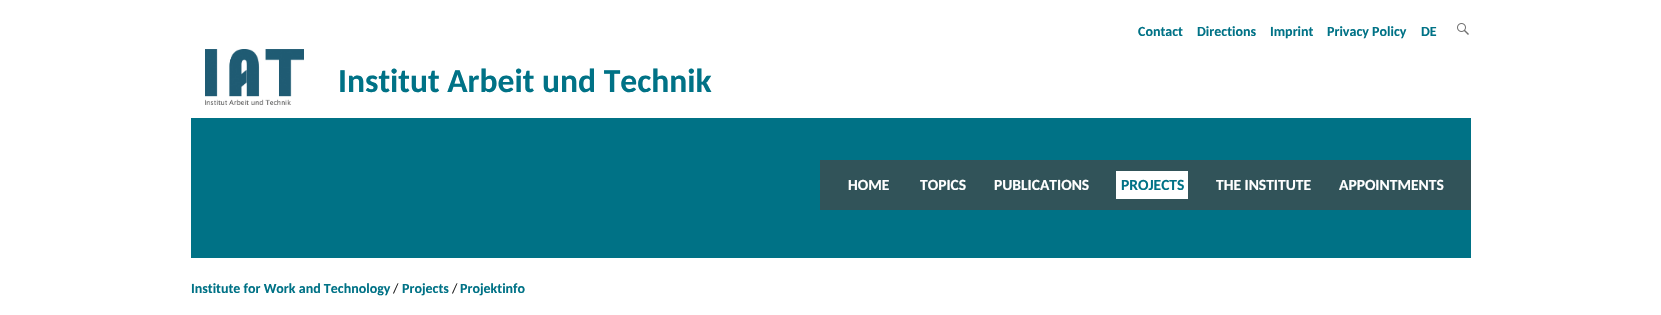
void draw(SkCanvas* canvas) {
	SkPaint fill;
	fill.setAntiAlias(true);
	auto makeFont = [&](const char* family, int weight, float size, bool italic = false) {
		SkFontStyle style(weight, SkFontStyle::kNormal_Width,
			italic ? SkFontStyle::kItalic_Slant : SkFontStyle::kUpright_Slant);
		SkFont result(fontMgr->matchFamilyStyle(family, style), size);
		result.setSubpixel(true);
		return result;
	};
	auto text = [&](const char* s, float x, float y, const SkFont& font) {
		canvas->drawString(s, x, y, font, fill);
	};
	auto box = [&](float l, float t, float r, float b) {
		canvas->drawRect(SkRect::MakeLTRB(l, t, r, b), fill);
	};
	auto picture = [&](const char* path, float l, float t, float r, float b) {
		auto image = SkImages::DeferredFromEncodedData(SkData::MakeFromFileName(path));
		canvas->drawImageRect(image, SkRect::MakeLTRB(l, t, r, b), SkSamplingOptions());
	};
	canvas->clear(0xFFFFFFFF);
	picture("image0.png", 1457, 23, 1469, 35);
	picture("image1.png", 205, 49, 304, 105);
	fill.setColor(0xFF007286);
	box(191, 118, 1471, 258);
	fill.setColor(0xFF315359);
	box(820, 160, 1471, 210);
	fill.setColor(0xFFFFFFFF);
	box(1116, 171, 1188, 199);
	auto font1 = makeFont("Carlito", 700, 14);
	fill.setColor(0xFF007286);
	text("Contact", 1138, 36, font1);
	text("Directions", 1197, 36, font1);
	text("Imprint", 1270, 36, font1);
	text("Privacy Policy", 1327, 36, font1);
	text("DE", 1421, 36, font1);
	auto font2 = makeFont("Carlito", 700, 33.6f);
	text("Institut Arbeit und Technik", 338, 92, font2);
	auto font3 = makeFont("Carlito", 700, 15.5f);
	fill.setColor(0xFFFFFFFF);
	text("HOME", 848, 190, font3);
	text("TOPICS", 920, 190, font3);
	text("PUBLICATIONS", 994, 190, font3);
	fill.setColor(0xFF007286);
	text("PROJECTS", 1121, 190, font3);
	fill.setColor(0xFFFFFFFF);
	text("THE INSTITUTE", 1216, 190, font3);
	text("APPOINTMENTS", 1339, 190, font3);
	fill.setColor(0xFF007286);
	text("Institute for Work and Technology", 191, 293, font1);
	auto font4 = makeFont("Carlito", 400, 14);
	fill.setColor(0xFF272727);
	text("/", 393, 293, font4);
	fill.setColor(0xFF007286);
	text("Projects", 402, 293, font1);
	fill.setColor(0xFF272727);
	text("/", 452, 293, font4);
	fill.setColor(0xFF007286);
	text("Projektinfo", 460, 293, font1);
}
